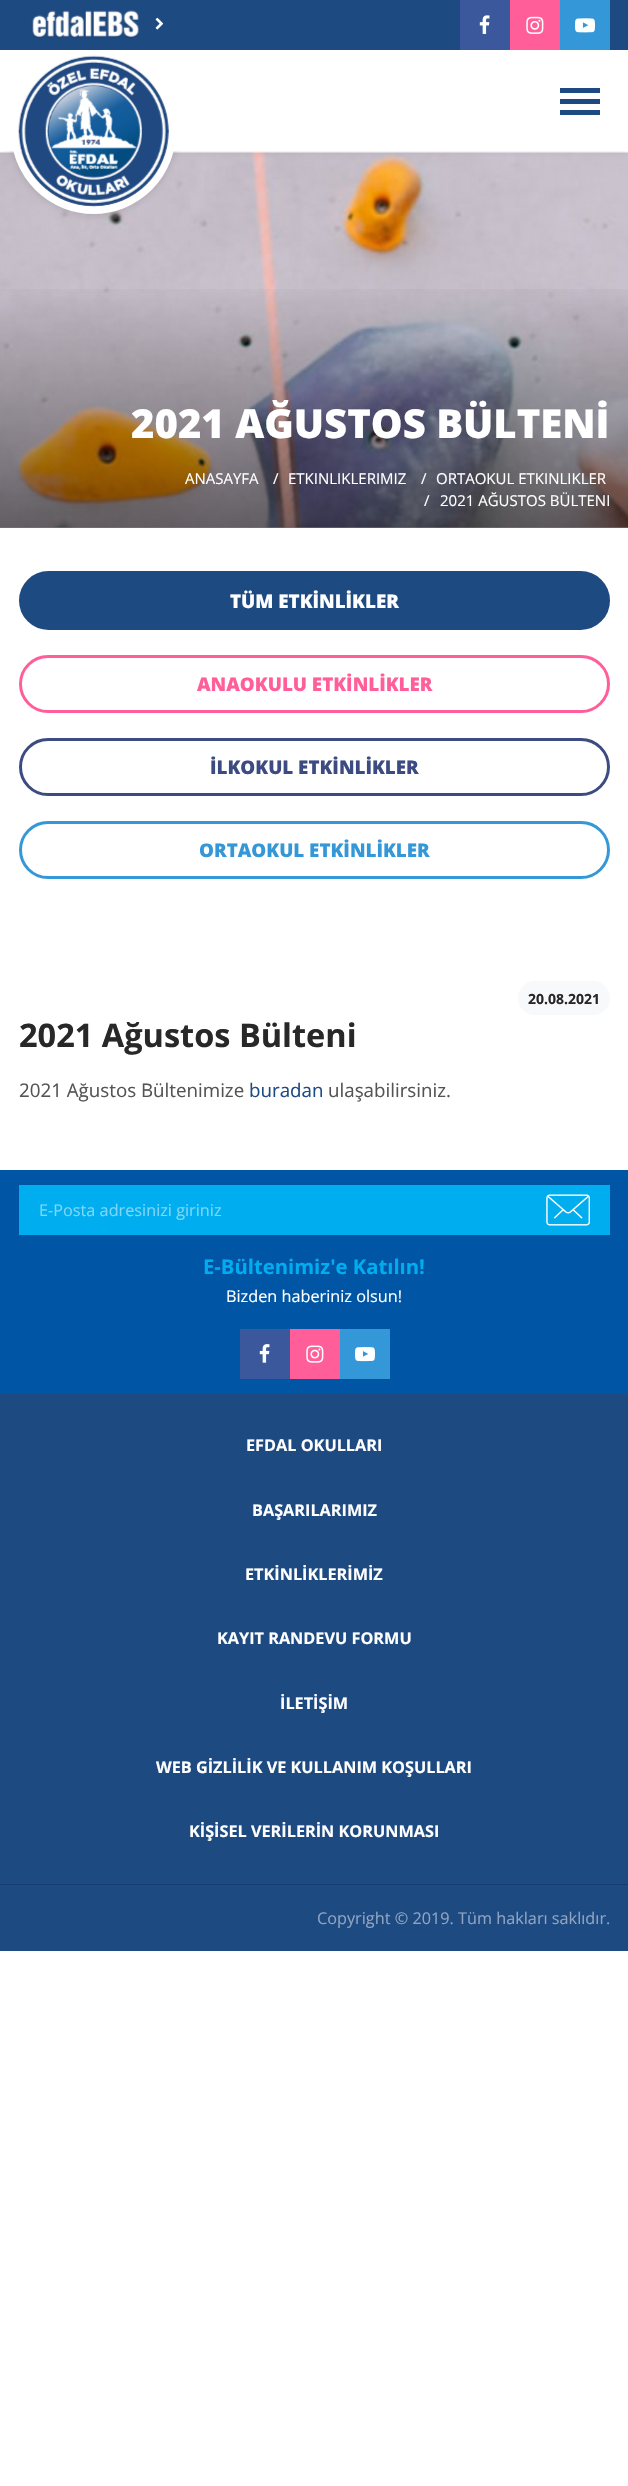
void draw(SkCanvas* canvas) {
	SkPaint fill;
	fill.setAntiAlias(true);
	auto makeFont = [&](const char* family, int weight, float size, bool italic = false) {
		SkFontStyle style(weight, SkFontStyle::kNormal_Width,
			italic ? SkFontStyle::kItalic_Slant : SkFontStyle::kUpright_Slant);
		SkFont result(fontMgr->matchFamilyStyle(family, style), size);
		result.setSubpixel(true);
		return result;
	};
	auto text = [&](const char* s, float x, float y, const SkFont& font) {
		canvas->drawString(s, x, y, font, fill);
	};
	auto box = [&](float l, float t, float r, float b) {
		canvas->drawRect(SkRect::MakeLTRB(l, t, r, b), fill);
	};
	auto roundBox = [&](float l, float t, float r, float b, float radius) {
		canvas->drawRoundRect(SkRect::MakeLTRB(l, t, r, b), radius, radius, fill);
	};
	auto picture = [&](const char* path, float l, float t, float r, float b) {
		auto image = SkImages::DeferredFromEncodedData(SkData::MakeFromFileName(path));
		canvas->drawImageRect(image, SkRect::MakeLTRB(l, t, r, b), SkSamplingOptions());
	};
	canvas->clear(0xFFFFFFFF);
	picture("image6.png", 0, 152, 628, 528);
	fill.setColor(0x1A0C0D0D);
	fill.setMaskFilter(SkMaskFilter::MakeBlur(kNormal_SkBlurStyle, 5));
	canvas->drawRect(SkRect::MakeLTRB(0, 0, 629, 151), fill);
	fill.setMaskFilter(nullptr);
	fill.setColor(0x260C0D0D);
	fill.setMaskFilter(SkMaskFilter::MakeBlur(kNormal_SkBlurStyle, 5));
	canvas->drawRoundRect(SkRect::MakeLTRB(11, 49, 176, 214), 82.5f, 82.5f, fill);
	fill.setMaskFilter(nullptr);
	fill.setStyle(SkPaint::kStroke_Style);
	fill.setStrokeWidth(8);
	fill.setColor(0xFFFFFFFF);
	canvas->drawCircle(93.5f, 131.5f, 78.5f, fill);
	fill.setStyle(SkPaint::kFill_Style);
	fill.setColor(0xFF1E4A82);
	box(0, 0, 628, 50);
	picture("image0.png", 31, 10, 139, 39);
	picture("image1.png", 155, 17, 164, 30);
	fill.setColor(0xFF3A589B);
	box(460, 0, 510, 50);
	picture("image2.png", 479, 15, 490, 34);
	fill.setColor(0xFFFF5E99);
	box(510, 0, 560, 50);
	picture("image3.png", 526, 16, 544, 34);
	fill.setColor(0xFF3498D8);
	box(560, 0, 610, 50);
	picture("image4.png", 575, 18, 595, 33);
	fill.setColor(0xFFFFFFFF);
	box(0, 50, 628, 151);
	picture("image5.png", 18, 55, 169, 207);
	fill.setColor(0xFF1E4A82);
	box(560, 88, 600, 93);
	box(560, 99, 600, 104);
	box(560, 110, 600, 115);
	{
		const SkColor colors[] = {0x80000000, 0x00000000};
		const float stops[] = {0, 1};
		const SkPoint ends[] = {{314, 528}, {314, 278}};
		fill.setShader(SkGradientShader::MakeLinear(ends, colors, stops, 2, SkTileMode::kClamp));
		fill.setAlpha(255);
	}
	box(0, 289, 628, 528);
	fill.setShader(nullptr);
	fill.setColor(0xFF1E4A82);
	canvas->drawRoundRect(SkRect::MakeLTRB(20.5f, 572.5f, 608.5f, 628.5f), 28, 28, fill);
	fill.setStyle(SkPaint::kStroke_Style);
	fill.setStrokeWidth(3);
	canvas->drawRoundRect(SkRect::MakeLTRB(20.5f, 572.5f, 608.5f, 628.5f), 28, 28, fill);
	fill.setColor(0xFFFF5E99);
	canvas->drawRoundRect(SkRect::MakeLTRB(20.5f, 656.5f, 608.5f, 711.5f), 27.5f, 27.5f, fill);
	fill.setColor(0xFF3C4B81);
	canvas->drawRoundRect(SkRect::MakeLTRB(20.5f, 739.5f, 608.5f, 794.5f), 27.5f, 27.5f, fill);
	fill.setColor(0xFF3498D8);
	canvas->drawRoundRect(SkRect::MakeLTRB(20.5f, 822.5f, 608.5f, 877.5f), 27.5f, 27.5f, fill);
	fill.setStyle(SkPaint::kFill_Style);
	fill.setColor(0xFFF8F9FA);
	roundBox(518, 981, 610, 1015, 17);
	fill.setColor(0xFF0055A4);
	box(0, 1170, 628, 1394);
	fill.setColor(0xFF00ADEF);
	box(19, 1185, 610, 1235);
	picture("image7.png", 546, 1194, 590, 1226);
	fill.setColor(0xFF3A589B);
	box(240, 1329, 290, 1379);
	picture("image8.png", 259, 1344, 270, 1363);
	fill.setColor(0xFFFF5E99);
	box(290, 1329, 340, 1379);
	picture("image9.png", 306, 1345, 324, 1363);
	fill.setColor(0xFF3498D8);
	box(340, 1329, 390, 1379);
	picture("image10.png", 355, 1347, 375, 1362);
	fill.setColor(0xFF1E4A82);
	box(0, 1394, 628, 1951);
	fill.setColor(0xFF153D71);
	box(0, 1884, 628, 1885);
	auto font1 = makeFont("Open Sans", 800, 40);
	fill.setColor(0xFFFFFFFF);
	text("2021 AĞUSTOS BÜLTENİ", 131, 438, font1);
	auto font2 = makeFont("Open Sans", 400, 15);
	text("ANASAYFA", 185, 484, font2);
	text("/", 273, 484, font2);
	text("ETKINLIKLERIMIZ", 288, 484, font2);
	text("/", 421, 484, font2);
	text("ORTAOKUL ETKINLIKLER", 436, 484, font2);
	text("/", 424, 506, font2);
	text("2021 AĞUSTOS BÜLTENI", 440, 506, font2);
	auto font3 = makeFont("Open Sans", 800, 18.75f);
	text("TÜM ETKİNLİKLER", 230, 608, font3);
	fill.setColor(0xFFFF5E99);
	text("ANAOKULU ETKİNLİKLER", 197, 691, font3);
	fill.setColor(0xFF3C4B81);
	text("İLKOKUL ETKİNLİKLER", 210, 774, font3);
	fill.setColor(0xFF3498D8);
	text("ORTAOKUL ETKİNLİKLER", 199, 857, font3);
	auto font4 = makeFont("Open Sans", 700, 14);
	fill.setColor(0xFF282828);
	text("20.08.2021", 528, 1004, font4);
	auto font5 = makeFont("Open Sans", 700, 32.5f);
	text("2021 Ağustos Bülteni", 19, 1047, font5);
	auto font6 = makeFont("Open Sans", 400, 18.75f);
	fill.setColor(0xFF545454);
	text("2021 Ağustos Bültenimize", 19, 1097, font6);
	fill.setColor(0xFF1E4A82);
	text("buradan", 249, 1097, font6);
	fill.setColor(0xFF545454);
	text("ulaşabilirsiniz.", 328, 1097, font6);
	auto font7 = makeFont("Open Sans", 400, 16.25f);
	fill.setColor(0xFF7FD6F7);
	text("E-Posta adresinizi giriniz", 39, 1216, font7);
	auto font8 = makeFont("Open Sans", 700, 20.25f);
	fill.setColor(0xFF00ADEF);
	text("E-Bültenimiz'e Katılın!", 203, 1274, font8);
	fill.setColor(0xFFFFFFFF);
	text("Bizden haberiniz olsun!", 226, 1302, font7);
	auto font9 = makeFont("Open Sans", 700, 16.25f);
	text("EFDAL OKULLARI", 246, 1451, font9);
	text("BAŞARILARIMIZ", 252, 1516, font9);
	text("ETKİNLİKLERİMİZ", 245, 1580, font9);
	text("KAYIT RANDEVU FORMU", 217, 1644, font9);
	text("İLETİŞİM", 280, 1709, font9);
	text("WEB GİZLİLİK VE KULLANIM KOŞULLARI", 156, 1773, font9);
	text("KİŞİSEL VERİLERİN KORUNMASI", 189, 1837, font9);
	fill.setColor(0xFF8FA5C1);
	text("Copyright © 2019. Tüm hakları saklıdır.", 317, 1924, font7);
}
